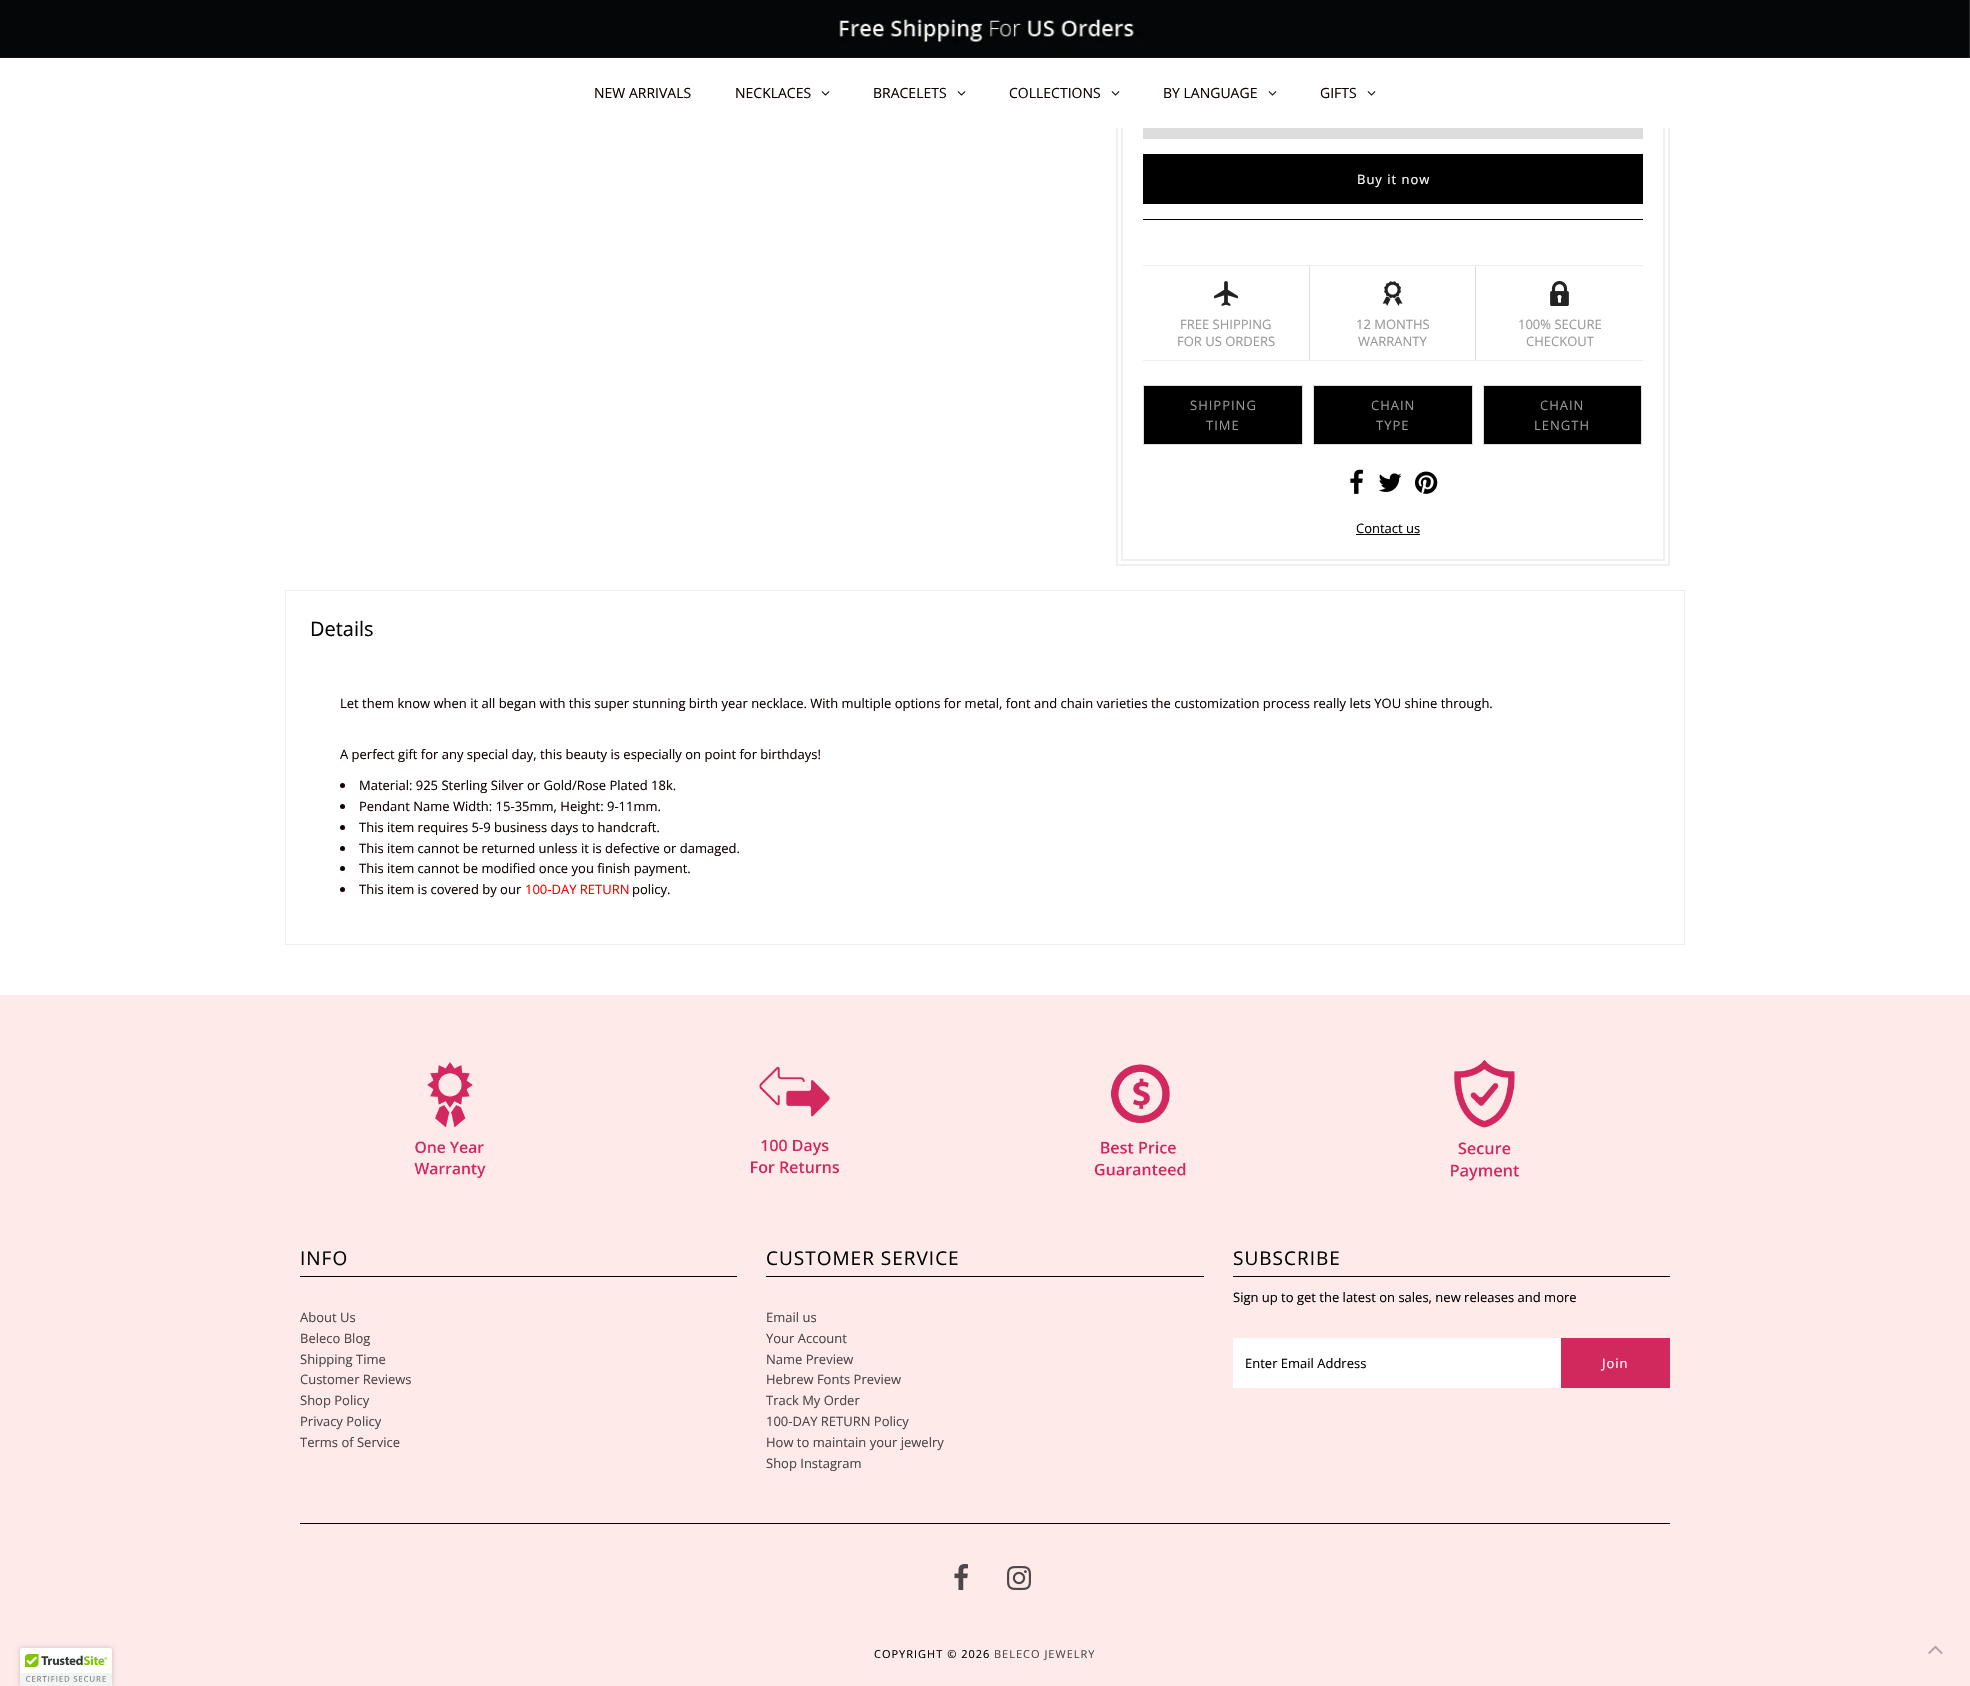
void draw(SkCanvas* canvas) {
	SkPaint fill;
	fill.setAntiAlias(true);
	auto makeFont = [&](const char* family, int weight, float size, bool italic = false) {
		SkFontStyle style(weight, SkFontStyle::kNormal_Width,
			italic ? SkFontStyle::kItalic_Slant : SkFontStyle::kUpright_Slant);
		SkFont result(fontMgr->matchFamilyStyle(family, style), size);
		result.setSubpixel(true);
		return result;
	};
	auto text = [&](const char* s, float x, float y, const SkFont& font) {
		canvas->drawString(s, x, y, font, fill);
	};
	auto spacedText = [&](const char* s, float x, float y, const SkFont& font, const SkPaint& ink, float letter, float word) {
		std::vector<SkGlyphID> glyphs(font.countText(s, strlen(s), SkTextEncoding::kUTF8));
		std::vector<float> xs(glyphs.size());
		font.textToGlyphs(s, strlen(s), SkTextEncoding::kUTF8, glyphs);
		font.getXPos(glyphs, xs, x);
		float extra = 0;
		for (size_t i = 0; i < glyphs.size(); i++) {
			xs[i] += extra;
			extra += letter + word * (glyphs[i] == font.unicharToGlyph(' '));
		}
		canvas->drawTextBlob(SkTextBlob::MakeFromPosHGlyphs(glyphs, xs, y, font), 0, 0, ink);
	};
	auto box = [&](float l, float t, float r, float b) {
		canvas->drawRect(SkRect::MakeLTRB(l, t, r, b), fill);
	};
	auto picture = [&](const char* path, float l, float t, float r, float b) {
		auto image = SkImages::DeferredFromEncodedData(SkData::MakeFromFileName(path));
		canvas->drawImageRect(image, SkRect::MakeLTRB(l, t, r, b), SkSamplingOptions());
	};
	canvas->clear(0xFFFFFFFF);
	fill.setColor(0xFFFFEAEA);
	box(0, 995, 1970, 1686);
	fill.setColor(0x33000000);
	fill.setMaskFilter(SkMaskFilter::MakeBlur(kNormal_SkBlurStyle, 2.5f));
	canvas->drawRoundRect(SkRect::MakeLTRB(20, 1648, 112, 1686), 2, 2, fill);
	fill.setMaskFilter(nullptr);
	fill.setColor(0xFFFFFFFF);
	canvas->drawPath(SkPathBuilder().moveTo(22, 1648).lineTo(110, 1648).cubicTo(111, 1648, 112, 1649, 112, 1650).lineTo(112, 1686).lineTo(20, 1686).lineTo(20, 1650).cubicTo(20, 1649, 21, 1648, 22, 1648).close().detach(), fill);
	picture("image0.png", 20, 1654, 112, 1686);
	fill.setStyle(SkPaint::kStroke_Style);
	fill.setStrokeWidth(2);
	fill.setColor(0xFFF0F0F0);
	canvas->drawRect(SkRect::MakeLTRB(1117, -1, 1669, 565), fill);
	canvas->drawRect(SkRect::MakeLTRB(1122, -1, 1664, 560), fill);
	fill.setStyle(SkPaint::kFill_Style);
	fill.setColor(0xFFFFFFFF);
	box(1116, 0, 1670, 128);
	picture("image1.png", 0, 0, 1970, 58);
	picture("image2.png", 821, 91, 830, 96);
	picture("image2.png", 957, 91, 966, 96);
	picture("image2.png", 1111, 91, 1120, 96);
	picture("image2.png", 1268, 91, 1277, 96);
	picture("image2.png", 1367, 91, 1376, 96);
	fill.setColor(0xFF000000);
	box(1143, 219, 1643, 220);
	fill.setColor(0xFFDDDDDD);
	box(1143, 128, 1643, 139);
	fill.setColor(0xFF000000);
	box(1143, 154, 1643, 204);
	fill.setColor(0xFFEEEEEE);
	box(1143, 265, 1643, 266);
	box(1143, 360, 1643, 361);
	fill.setColor(0xFFDDDDDD);
	box(1309, 266, 1310, 360);
	picture("image3.png", 1214, 281, 1238, 306);
	box(1475, 266, 1476, 360);
	picture("image4.png", 1382, 281, 1403, 306);
	picture("image5.png", 1550, 281, 1569, 306);
	fill.setColor(0xFF000000);
	canvas->drawRect(SkRect::MakeLTRB(1143.5f, 385.5f, 1302.5f, 444.5f), fill);
	fill.setStyle(SkPaint::kStroke_Style);
	fill.setStrokeWidth(1);
	fill.setColor(0xFFDDDDDD);
	canvas->drawRect(SkRect::MakeLTRB(1143.5f, 385.5f, 1302.5f, 444.5f), fill);
	fill.setStyle(SkPaint::kFill_Style);
	fill.setColor(0xFF000000);
	canvas->drawRect(SkRect::MakeLTRB(1313.5f, 385.5f, 1472.5f, 444.5f), fill);
	fill.setStyle(SkPaint::kStroke_Style);
	fill.setColor(0xFFDDDDDD);
	canvas->drawRect(SkRect::MakeLTRB(1313.5f, 385.5f, 1472.5f, 444.5f), fill);
	fill.setStyle(SkPaint::kFill_Style);
	fill.setColor(0xFF000000);
	canvas->drawRect(SkRect::MakeLTRB(1483.5f, 385.5f, 1641.5f, 444.5f), fill);
	fill.setStyle(SkPaint::kStroke_Style);
	fill.setColor(0xFFDDDDDD);
	canvas->drawRect(SkRect::MakeLTRB(1483.5f, 385.5f, 1641.5f, 444.5f), fill);
	picture("image6.png", 1350, 469, 1363, 494);
	picture("image7.png", 1378, 473, 1402, 492);
	picture("image8.png", 1415, 471, 1438, 494);
	fill.setStyle(SkPaint::kFill_Style);
	fill.setColor(0xFF000000);
	box(1356, 534, 1420, 535);
	fill.setStyle(SkPaint::kStroke_Style);
	fill.setColor(0xFFEEEEEE);
	canvas->drawRect(SkRect::MakeLTRB(285.5f, 590.5f, 1684.5f, 944.5f), fill);
	fill.setStyle(SkPaint::kFill_Style);
	fill.setColor(0xFF0E0101);
	canvas->drawCircle(342.5f, 785.5f, 2.5f, fill);
	canvas->drawCircle(342.5f, 806.5f, 2.5f, fill);
	canvas->drawCircle(342.5f, 827.5f, 2.5f, fill);
	canvas->drawCircle(342.5f, 848.5f, 2.5f, fill);
	canvas->drawCircle(342.5f, 868.5f, 2.5f, fill);
	canvas->drawCircle(342.5f, 889.5f, 2.5f, fill);
	picture("image9.png", 414, 1062, 486, 1178);
	picture("image10.png", 751, 1066, 840, 1174);
	picture("image11.png", 1094, 1064, 1186, 1176);
	picture("image12.png", 1451, 1059, 1520, 1181);
	fill.setColor(0xFF000000);
	box(300, 1276, 737, 1277);
	box(766, 1276, 1204, 1277);
	box(1233, 1276, 1670, 1277);
	fill.setColor(0xFFFFFFFF);
	box(1233, 1338, 1561, 1388);
	fill.setColor(0xFFD1285D);
	box(1561, 1338, 1670, 1388);
	fill.setColor(0xFF000000);
	box(300, 1523, 1670, 1524);
	picture("image13.png", 954, 1564, 968, 1590);
	picture("image14.png", 1007, 1566, 1031, 1590);
	picture("image15.png", 1928, 1645, 1943, 1654);
	auto font1 = makeFont("Open Sans", 400, 14);
	fill.setColor(0xFF0E0101);
	text("NEW ARRIVALS", 594, 98, font1);
	text("NECKLACES", 735, 98, font1);
	text("BRACELETS", 873, 98, font1);
	text("COLLECTIONS", 1009, 98, font1);
	text("BY LANGUAGE", 1163, 98, font1);
	text("GIFTS", 1320, 98, font1);
	auto font2 = makeFont("Open Sans", 400, 13);
	fill.setColor(0xFFFFFFFF);
	spacedText("Buy it now", 1357, 184, font2, fill, 1, 0);
	fill.setColor(0xFF999999);
	text("FREE SHIPPING", 1180, 329, font2);
	text("FOR US ORDERS", 1177, 346, font2);
	text("12 MONTHS", 1356, 329, font2);
	text("WARRANTY", 1358, 346, font2);
	text("100% SECURE", 1518, 329, font2);
	text("CHECKOUT", 1526, 346, font2);
	spacedText("SHIPPING", 1190, 410, font2, fill, 1, 0);
	spacedText("TIME", 1206, 430, font2, fill, 1, 0);
	spacedText("CHAIN", 1371, 410, font2, fill, 1, 0);
	spacedText("TYPE", 1376, 430, font2, fill, 1, 0);
	spacedText("CHAIN", 1540, 410, font2, fill, 1, 0);
	spacedText("LENGTH", 1534, 430, font2, fill, 1, 0);
	fill.setColor(0xFF000000);
	text("Contact us", 1356, 533, font2);
	auto font3 = makeFont("Open Sans", 400, 20);
	text("Details", 310, 636, font3);
	fill.setColor(0xFF0E0101);
	text("Let them know when it all began with this super stunning birth year necklace. With multiple options for metal, font and chain varieties the customization process really lets YOU shine through.", 340, 708, font2);
	text("A perfect gift for any special day, this beauty is especially on point for birthdays!", 340, 759, font2);
	text("Material: 925 Sterling Silver or Gold/Rose Plated 18k.", 359, 790, font2);
	text("Pendant Name Width: 15-35mm, Height: 9-11mm.", 359, 811, font2);
	text("This item requires 5-9 business days to handcraft.", 359, 832, font2);
	text("This item cannot be returned unless it is defective or damaged.", 359, 853, font2);
	text("This item cannot be modified once you finish payment.", 359, 873, font2);
	text("This item is covered by our", 359, 894, font2);
	fill.setColor(0xFFFF0000);
	text("100-DAY RETURN", 525, 894, font2);
	fill.setColor(0xFF0E0101);
	text("policy.", 632, 894, font2);
	auto font4 = makeFont("Open Sans", 400, 19);
	fill.setColor(0xFF000000);
	spacedText("INFO", 300, 1265, font4, fill, 1, 0);
	fill.setColor(0xFF4D4646);
	text("About Us", 300, 1322, font2);
	text("Beleco Blog", 300, 1343, font2);
	text("Shipping Time", 300, 1364, font2);
	text("Customer Reviews", 300, 1384, font2);
	text("Shop Policy", 300, 1405, font2);
	text("Privacy Policy", 300, 1426, font2);
	text("Terms of Service", 300, 1447, font2);
	fill.setColor(0xFF000000);
	spacedText("CUSTOMER SERVICE", 766, 1265, font4, fill, 1, 0);
	fill.setColor(0xFF4D4646);
	text("Email us", 766, 1322, font2);
	text("Your Account", 766, 1343, font2);
	text("Name Preview", 766, 1364, font2);
	text("Hebrew Fonts Preview", 766, 1384, font2);
	text("Track My Order", 766, 1405, font2);
	text("100-DAY RETURN Policy", 766, 1426, font2);
	text("How to maintain your jewelry", 766, 1447, font2);
	text("Shop Instagram", 766, 1468, font2);
	fill.setColor(0xFF000000);
	spacedText("SUBSCRIBE", 1233, 1265, font4, fill, 1, 0);
	text("Sign up to get the latest on sales, new releases and more", 1233, 1302, font2);
	text("Enter Email Address", 1245, 1368, font2);
	fill.setColor(0xFFFFFFFF);
	spacedText("Join", 1602, 1368, font2, fill, 1, 0);
	auto font5 = makeFont("Open Sans", 400, 11);
	fill.setColor(0xFF000000);
	spacedText("COPYRIGHT © 2026", 874, 1658, font5, fill, 1, 0);
	fill.setColor(0xFF4D4646);
	spacedText("BELECO JEWELRY", 994, 1658, font5, fill, 1, 0);
}
